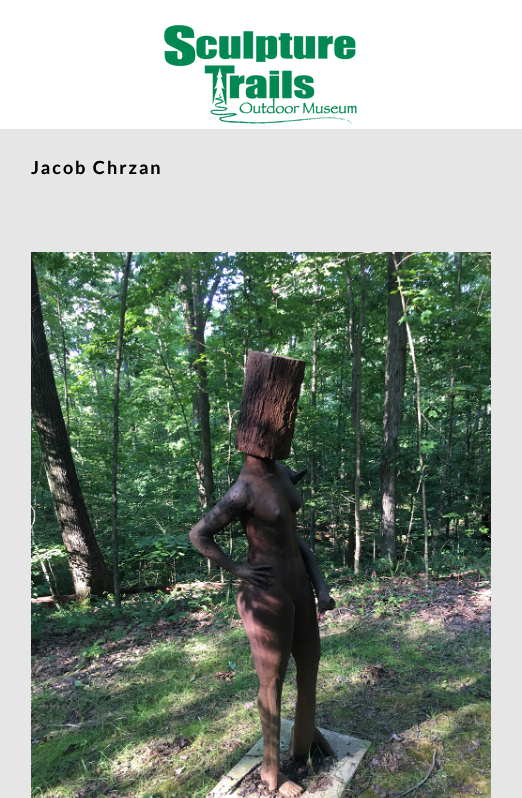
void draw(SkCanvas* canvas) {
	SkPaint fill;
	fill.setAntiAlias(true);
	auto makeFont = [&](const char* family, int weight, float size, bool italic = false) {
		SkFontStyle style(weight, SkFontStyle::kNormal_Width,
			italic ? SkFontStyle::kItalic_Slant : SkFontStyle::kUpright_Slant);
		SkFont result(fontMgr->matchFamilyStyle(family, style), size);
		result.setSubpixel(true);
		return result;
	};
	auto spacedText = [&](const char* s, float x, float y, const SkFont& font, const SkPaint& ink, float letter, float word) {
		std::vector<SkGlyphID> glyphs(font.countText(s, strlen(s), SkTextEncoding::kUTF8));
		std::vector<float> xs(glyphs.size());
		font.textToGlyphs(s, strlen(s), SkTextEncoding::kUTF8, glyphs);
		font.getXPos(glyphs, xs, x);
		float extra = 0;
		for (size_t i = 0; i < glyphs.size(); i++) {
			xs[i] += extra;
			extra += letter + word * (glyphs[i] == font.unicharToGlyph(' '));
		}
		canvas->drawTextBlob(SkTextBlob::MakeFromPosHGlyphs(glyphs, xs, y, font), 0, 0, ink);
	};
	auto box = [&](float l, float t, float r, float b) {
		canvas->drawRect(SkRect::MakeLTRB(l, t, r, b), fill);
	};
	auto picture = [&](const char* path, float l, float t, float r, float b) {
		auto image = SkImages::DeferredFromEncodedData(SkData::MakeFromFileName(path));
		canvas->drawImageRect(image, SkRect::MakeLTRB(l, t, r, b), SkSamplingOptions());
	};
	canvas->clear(0xFFE6E6E6);
	fill.setColor(0xFFFFFFFF);
	box(0, 0, 522, 129);
	picture("image0.png", 164, 25, 357, 124);
	picture("image1.png", 31, 252, 491, 798);
	auto font1 = makeFont("Lato", 700, 18);
	fill.setColor(0xFF000000);
	spacedText("Jacob Chrzan", 31, 174, font1, fill, 2, 0);
}
